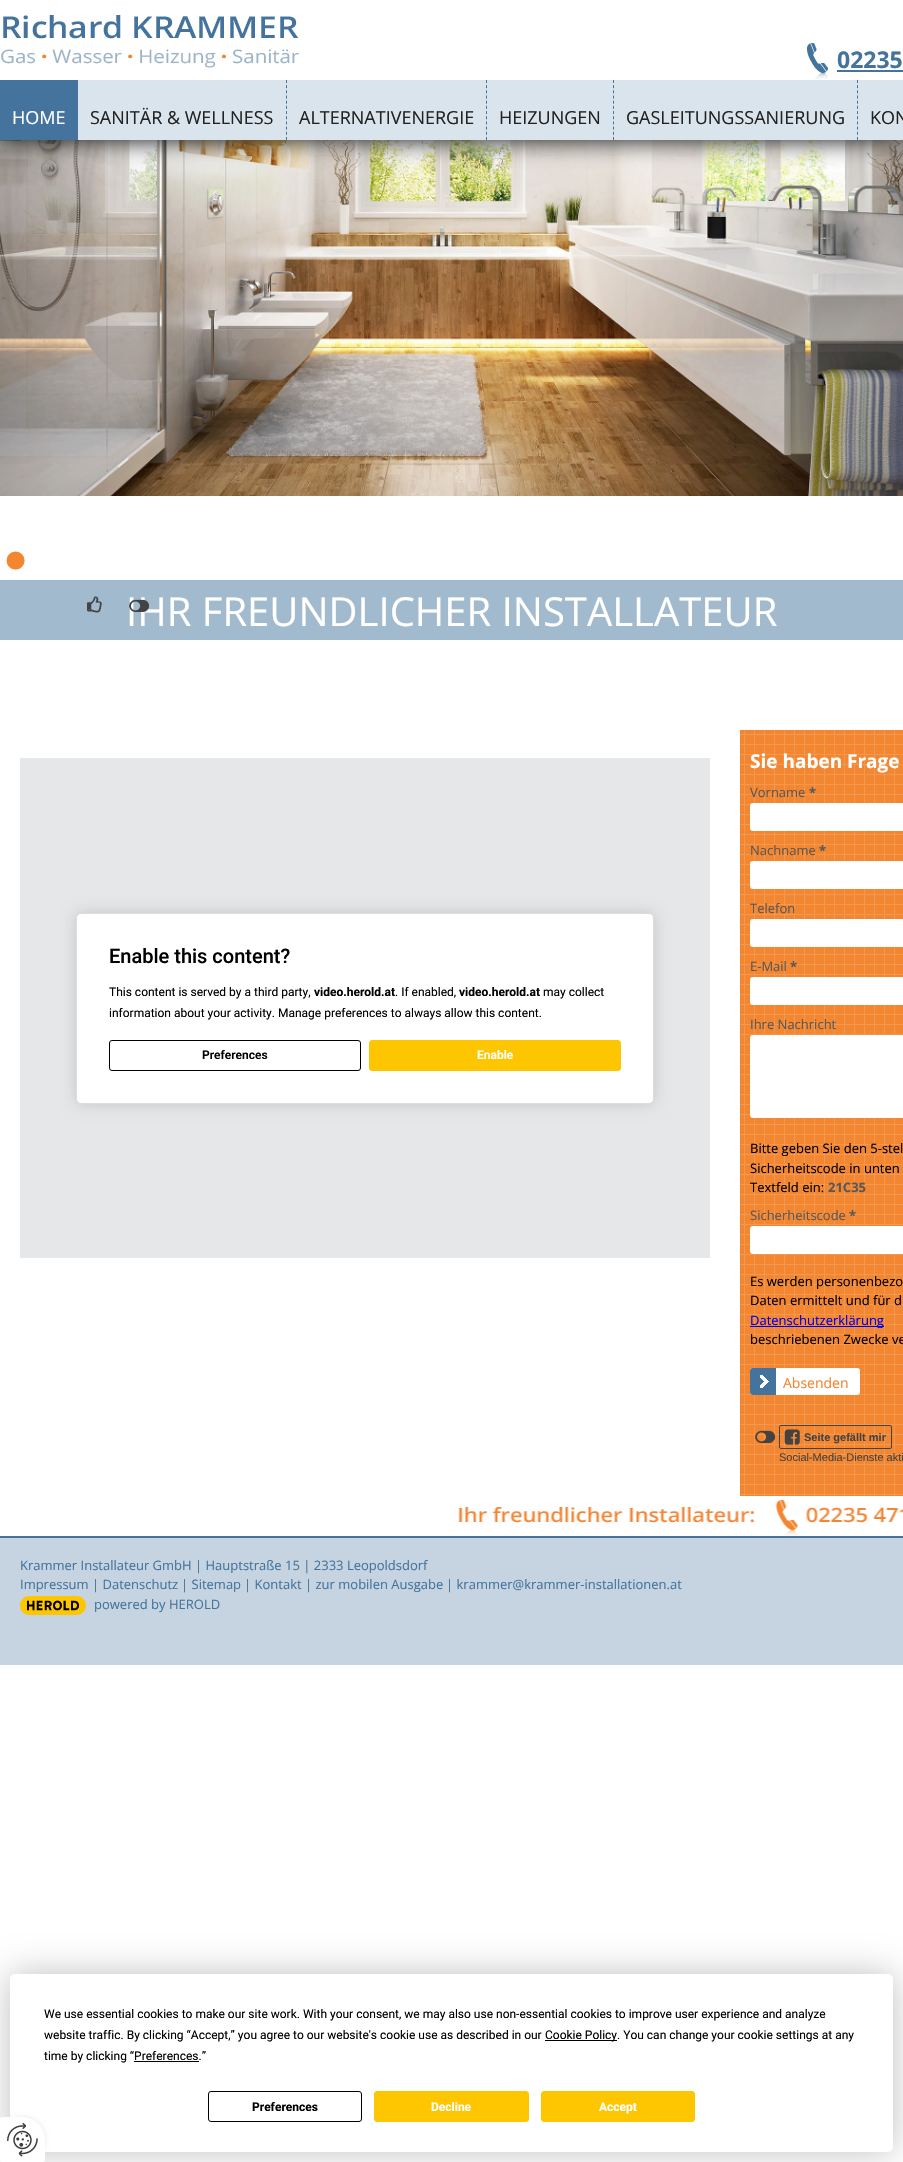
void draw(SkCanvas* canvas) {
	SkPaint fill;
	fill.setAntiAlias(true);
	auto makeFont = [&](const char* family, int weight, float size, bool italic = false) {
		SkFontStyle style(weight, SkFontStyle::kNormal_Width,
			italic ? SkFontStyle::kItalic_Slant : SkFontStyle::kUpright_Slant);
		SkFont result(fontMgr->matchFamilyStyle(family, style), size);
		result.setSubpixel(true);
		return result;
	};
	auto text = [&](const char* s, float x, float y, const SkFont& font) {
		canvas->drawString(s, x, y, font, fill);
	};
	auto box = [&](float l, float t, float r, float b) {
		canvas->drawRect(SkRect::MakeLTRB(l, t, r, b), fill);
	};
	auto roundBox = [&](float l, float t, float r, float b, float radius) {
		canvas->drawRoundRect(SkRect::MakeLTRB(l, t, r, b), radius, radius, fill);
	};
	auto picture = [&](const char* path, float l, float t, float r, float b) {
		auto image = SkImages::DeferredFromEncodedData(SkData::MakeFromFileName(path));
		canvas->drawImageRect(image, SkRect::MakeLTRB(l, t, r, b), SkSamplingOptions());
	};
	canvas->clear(0xFFFFFFFF);
	picture("image3.png", 0, 140, 903, 496);
	fill.setColor(0xFF151515);
	fill.setMaskFilter(SkMaskFilter::MakeBlur(kNormal_SkBlurStyle, 12.5f));
	canvas->drawRect(SkRect::MakeLTRB(0, 81, 903, 141), fill);
	fill.setMaskFilter(nullptr);
	fill.setColor(0xFFFFFFFF);
	box(0, 52, 903, 80);
	picture("image0.png", 1, 15, 299, 68);
	picture("image1.png", 807, 43, 828, 80);
	fill.setColor(0xFF44749D);
	box(837, 70, 903, 72);
	fill.setColor(0xFFDAE4EC);
	box(78, 80, 903, 140);
	fill.setColor(0xFF44749D);
	box(0, 80, 78, 140);
	fill.setStyle(SkPaint::kStroke_Style);
	fill.setStrokeWidth(1);
	fill.setPathEffect(SkDashPathEffect::Make({{3, 2.18f}}, 0));
	canvas->drawPath(SkPathBuilder().moveTo(286.5f, 80).lineTo(286.5f, 140).detach(), fill);
	fill.setPathEffect(nullptr);
	fill.setPathEffect(SkDashPathEffect::Make({{3, 2.18f}}, 0));
	canvas->drawPath(SkPathBuilder().moveTo(486.5f, 80).lineTo(486.5f, 140).detach(), fill);
	fill.setPathEffect(nullptr);
	fill.setPathEffect(SkDashPathEffect::Make({{3, 2.18f}}, 0));
	canvas->drawPath(SkPathBuilder().moveTo(613.5f, 80).lineTo(613.5f, 140).detach(), fill);
	fill.setPathEffect(nullptr);
	fill.setPathEffect(SkDashPathEffect::Make({{3, 2.18f}}, 0));
	canvas->drawPath(SkPathBuilder().moveTo(857.5f, 80).lineTo(857.5f, 140).detach(), fill);
	fill.setPathEffect(nullptr);
	fill.setStyle(SkPaint::kFill_Style);
	fill.setColor(0xFFA2BACE);
	box(0, 580, 903, 640);
	picture("image2.png", 87, 596, 102, 613);
	picture("image4.png", 6, 551, 25, 570);
	fill.setColor(0xFFE6E7E8);
	box(20, 758, 710, 1258);
	fill.setColor(0x26000000);
	fill.setMaskFilter(SkMaskFilter::MakeBlur(kNormal_SkBlurStyle, 7.5f));
	canvas->drawRoundRect(SkRect::MakeLTRB(76, 913, 654, 1104), 5, 5, fill);
	fill.setMaskFilter(nullptr);
	fill.setColor(0xFFFFFFFF);
	canvas->drawRoundRect(SkRect::MakeLTRB(76.5f, 913.5f, 653.5f, 1103.5f), 4.5f, 4.5f, fill);
	fill.setStyle(SkPaint::kStroke_Style);
	fill.setColor(0xFFDDDDDD);
	canvas->drawRoundRect(SkRect::MakeLTRB(76.5f, 913.5f, 653.5f, 1103.5f), 4.5f, 4.5f, fill);
	fill.setColor(0xFF000000);
	canvas->drawRoundRect(SkRect::MakeLTRB(109.5f, 1040.5f, 360.5f, 1070.5f), 2.5f, 2.5f, fill);
	fill.setStyle(SkPaint::kFill_Style);
	fill.setColor(0xFFFEC600);
	canvas->drawRoundRect(SkRect::MakeLTRB(369.5f, 1040.5f, 620.5f, 1070.5f), 2.5f, 2.5f, fill);
	fill.setStyle(SkPaint::kStroke_Style);
	canvas->drawRoundRect(SkRect::MakeLTRB(369.5f, 1040.5f, 620.5f, 1070.5f), 2.5f, 2.5f, fill);
	picture("image6.png", 740, 730, 903, 1496);
	fill.setStyle(SkPaint::kFill_Style);
	fill.setColor(0xFFFFFFFF);
	roundBox(750, 803, 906, 831, 3);
	roundBox(750, 861, 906, 889, 3);
	roundBox(750, 919, 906, 947, 3);
	roundBox(750, 977, 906, 1005, 3);
	roundBox(750, 1035, 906, 1118, 3);
	roundBox(750, 1226, 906, 1254, 3);
	fill.setColor(0xFF0000EE);
	box(750, 1326, 884, 1327);
	fill.setColor(0xFFFFFFFF);
	roundBox(750, 1368, 860, 1395, 3);
	picture("image7.png", 750, 1368, 776, 1395);
	picture("image8.png", 755, 1430, 775, 1443);
	fill.setStyle(SkPaint::kStroke_Style);
	fill.setColor(0xFF434344);
	canvas->drawRoundRect(SkRect::MakeLTRB(779.5f, 1425.5f, 891.5f, 1448.5f), 1.5f, 1.5f, fill);
	picture("image9.png", 784, 1429, 800, 1445);
	picture("image10.png", 0, 1500, 903, 1665);
	picture("image11.png", 20, 1596, 86, 1615);
	fill.setStyle(SkPaint::kFill_Style);
	fill.setColor(0x40000000);
	fill.setMaskFilter(SkMaskFilter::MakeBlur(kNormal_SkBlurStyle, 17.5f));
	canvas->drawRoundRect(SkRect::MakeLTRB(10, 1974, 893, 2152), 5, 5, fill);
	fill.setMaskFilter(nullptr);
	fill.setColor(0xFFFFFFFF);
	roundBox(10, 1974, 893, 2152, 5);
	fill.setColor(0xFF000000);
	box(545, 2040, 617, 2041);
	box(134, 2061, 199, 2062);
	fill.setStyle(SkPaint::kStroke_Style);
	canvas->drawRoundRect(SkRect::MakeLTRB(208.5f, 2091.5f, 361.5f, 2121.5f), 2.5f, 2.5f, fill);
	fill.setStyle(SkPaint::kFill_Style);
	fill.setColor(0xFFFEC600);
	canvas->drawRoundRect(SkRect::MakeLTRB(374.5f, 2091.5f, 528.5f, 2121.5f), 2.5f, 2.5f, fill);
	fill.setStyle(SkPaint::kStroke_Style);
	canvas->drawRoundRect(SkRect::MakeLTRB(374.5f, 2091.5f, 528.5f, 2121.5f), 2.5f, 2.5f, fill);
	fill.setStyle(SkPaint::kFill_Style);
	canvas->drawRoundRect(SkRect::MakeLTRB(541.5f, 2091.5f, 694.5f, 2121.5f), 2.5f, 2.5f, fill);
	fill.setStyle(SkPaint::kStroke_Style);
	canvas->drawRoundRect(SkRect::MakeLTRB(541.5f, 2091.5f, 694.5f, 2121.5f), 2.5f, 2.5f, fill);
	fill.setStyle(SkPaint::kFill_Style);
	fill.setColor(0x1A000000);
	fill.setMaskFilter(SkMaskFilter::MakeBlur(kNormal_SkBlurStyle, 2.5f));
	canvas->drawRoundRect(SkRect::MakeLTRB(0, 2117, 45, 2162), 22.5f, 22.5f, fill);
	fill.setMaskFilter(nullptr);
	fill.setColor(0xFFFFFFFF);
	canvas->drawPath(SkPathBuilder().moveTo(2, 2117).lineTo(22.5f, 2117).cubicTo(35, 2117, 45, 2127, 45, 2139.5f).lineTo(45, 2160).cubicTo(45, 2161, 44, 2162, 43, 2162).lineTo(2, 2162).cubicTo(1, 2162, 0, 2161, 0, 2160).lineTo(0, 2119).cubicTo(0, 2118, 1, 2117, 2, 2117).close().detach(), fill);
	picture("image12.png", 7, 2123, 38, 2157);
	auto font1 = makeFont("Open Sans", 700, 23);
	fill.setColor(0xFF44749D);
	text("02235", 837, 68, font1);
	auto font2 = makeFont("Open Sans", 400, 18);
	fill.setColor(0xFFFFFFFF);
	text("HOME", 12, 124, font2);
	fill.setColor(0xFF222222);
	text("SANITÄR & WELLNESS", 90, 124, font2);
	text("ALTERNATIVENERGIE", 299, 124, font2);
	text("HEIZUNGEN", 499, 124, font2);
	text("GASLEITUNGSSANIERUNG", 626, 124, font2);
	text("KON", 870, 124, font2);
	auto font3 = makeFont("Open Sans", 400, 40);
	fill.setColor(0xFFFFFFFF);
	text("IHR FREUNDLICHER INSTALLATEUR", 126, 626, font3);
	picture("image5.png", 129, 598, 149, 612);
	auto font4 = makeFont("Roboto", 500, 20);
	fill.setColor(0xFF000000);
	text("Enable this content?", 109, 963, font4);
	auto font5 = makeFont("Roboto", 400, 12);
	text("This content is served by a third party,", 109, 996, font5);
	auto font6 = makeFont("Roboto", 700, 12);
	text("video.herold.at", 314, 996, font6);
	text(". If enabled,", 395, 996, font5);
	text("video.herold.at", 459, 996, font6);
	text("may collect", 543, 996, font5);
	text("information about your activity. Manage preferences to always allow this content.", 109, 1017, font5);
	auto font7 = makeFont("Roboto", 600, 12);
	text("Preferences", 202, 1059, font7);
	fill.setColor(0xFFFFFFFF);
	text("Enable", 477, 1059, font7);
	auto font8 = makeFont("Open Sans", 700, 19);
	text("Sie haben Frage", 750, 768, font8);
	auto font9 = makeFont("Open Sans", 400, 13);
	fill.setColor(0xFF585858);
	text("Vorname", 750, 797, font9);
	auto font10 = makeFont("Open Sans", 700, 13);
	text("*", 809, 797, font10);
	text("Nachname", 750, 855, font9);
	text("*", 819, 855, font10);
	text("Telefon", 750, 913, font9);
	text("E-Mail", 750, 971, font9);
	text("*", 790, 971, font10);
	text("Ihre Nachricht", 750, 1029, font9);
	fill.setColor(0xFF000000);
	text("Bitte geben Sie den 5-stel", 750, 1153, font9);
	text("Sicherheitscode in unten", 750, 1173, font9);
	text("Textfeld ein:", 750, 1192, font9);
	fill.setColor(0xFF585858);
	text("21C35", 828, 1192, font10);
	text("Sicherheitscode", 750, 1220, font9);
	text("*", 849, 1220, font10);
	fill.setColor(0xFF000000);
	text("Es werden personenbezo", 750, 1286, font9);
	text("Daten ermittelt und für d", 750, 1305, font9);
	fill.setColor(0xFF0000EE);
	text("Datenschutzerklärung", 750, 1325, font9);
	fill.setColor(0xFF000000);
	text("beschriebenen Zwecke ve", 750, 1344, font9);
	auto font11 = makeFont("Open Sans", 400, 14);
	fill.setColor(0xFFF38630);
	text("Absenden", 783, 1388, font11);
	auto font12 = makeFont("Liberation Sans", 700, 11);
	fill.setColor(0xFF434344);
	text("Seite gefällt mir", 804, 1441, font12);
	auto font13 = makeFont("Liberation Sans", 400, 11);
	text("Social-Media-Dienste akti", 779, 1461, font13);
	fill.setColor(0xFF44749D);
	text("Krammer Installateur GmbH | Hauptstraße 15 | 2333 Leopoldsdorf", 20, 1570, font9);
	text("Impressum", 20, 1589, font9);
	text("| Datenschutz", 92, 1589, font9);
	text("| Sitemap", 181, 1589, font9);
	text("| Kontakt", 244, 1589, font9);
	text("| zur mobilen Ausgabe", 305, 1589, font9);
	text("| krammer@krammer-installationen.at", 446, 1589, font9);
	text("powered by HEROLD", 94, 1609, font9);
	fill.setColor(0xFF000000);
	text("We use essential cookies to make our site work. With your consent, we may also use non-essential cookies to improve user experience and analyze", 44, 2018, font5);
	text("website traffic. By clicking “Accept,” you agree to our website's cookie use as described in our", 44, 2039, font5);
	text("Cookie Policy. You can change your cookie settings at any", 545, 2039, font5);
	text("time by clicking “Preferences.”", 44, 2060, font5);
	text("Preferences", 252, 2111, font6);
	fill.setColor(0xFFFFFFFF);
	text("Decline", 431, 2111, font6);
	text("Accept", 599, 2111, font6);
}
